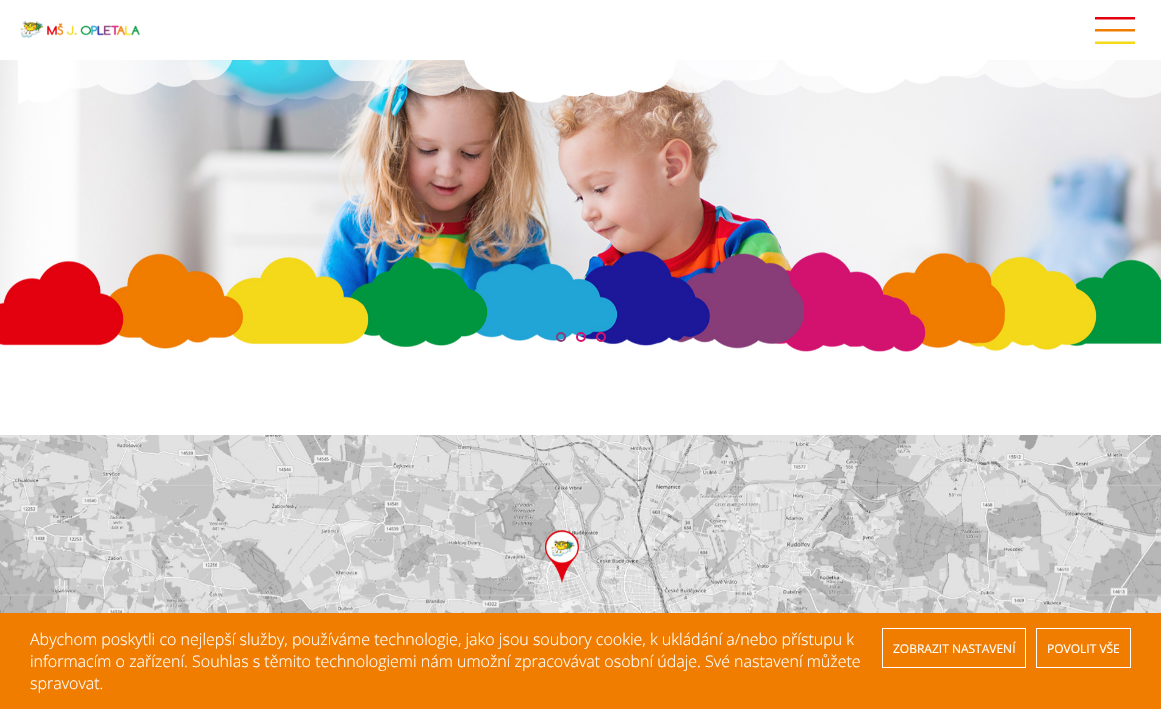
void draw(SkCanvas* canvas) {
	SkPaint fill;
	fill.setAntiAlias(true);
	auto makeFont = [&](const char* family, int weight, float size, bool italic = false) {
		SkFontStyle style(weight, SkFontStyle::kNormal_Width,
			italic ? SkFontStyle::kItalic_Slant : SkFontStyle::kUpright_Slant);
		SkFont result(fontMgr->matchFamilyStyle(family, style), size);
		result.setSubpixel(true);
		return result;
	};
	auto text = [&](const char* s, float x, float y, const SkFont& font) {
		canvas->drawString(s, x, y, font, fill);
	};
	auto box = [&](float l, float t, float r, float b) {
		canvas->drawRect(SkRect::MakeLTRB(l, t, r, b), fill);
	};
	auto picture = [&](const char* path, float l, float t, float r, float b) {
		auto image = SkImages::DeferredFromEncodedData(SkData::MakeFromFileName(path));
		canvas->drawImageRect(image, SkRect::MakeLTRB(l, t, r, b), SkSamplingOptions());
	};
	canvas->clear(0xFFFFFFFF);
	picture("image0.png", 20, 20, 140, 38);
	picture("image1.png", 1095, 17, 1135, 44);
	picture("image2.png", 0, 60, 1161, 352);
	fill.setStyle(SkPaint::kStroke_Style);
	fill.setStrokeWidth(2);
	fill.setColor(0xFF883C78);
	canvas->drawCircle(561, 337, 4, fill);
	fill.setColor(0xFFD31270);
	canvas->drawCircle(581, 337, 4, fill);
	canvas->drawCircle(601, 337, 4, fill);
	picture("image3.png", 0, 435, 1161, 613);
	fill.setStyle(SkPaint::kFill_Style);
	fill.setColor(0xFFF07C00);
	box(0, 613, 1161, 709);
	fill.setStyle(SkPaint::kStroke_Style);
	fill.setStrokeWidth(1);
	fill.setColor(0xFFFFFFFF);
	canvas->drawRect(SkRect::MakeLTRB(882.5f, 628.5f, 1025.5f, 667.5f), fill);
	canvas->drawRect(SkRect::MakeLTRB(1036.5f, 628.5f, 1130.5f, 667.5f), fill);
	auto font1 = makeFont("Open Sans", 300, 16);
	fill.setStyle(SkPaint::kFill_Style);
	text("Abychom poskytli co nejlepší služby, používáme technologie, jako jsou soubory cookie, k ukládání a/nebo přístupu k", 30, 645, font1);
	text("informacím o zařízení. Souhlas s těmito technologiemi nám umožní zpracovávat osobní údaje. Své nastavení můžete", 30, 667, font1);
	text("spravovat.", 30, 689, font1);
	auto font2 = makeFont("Open Sans", 400, 12);
	text("ZOBRAZIT NASTAVENÍ", 893, 653, font2);
	text("POVOLIT VŠE", 1047, 653, font2);
}
